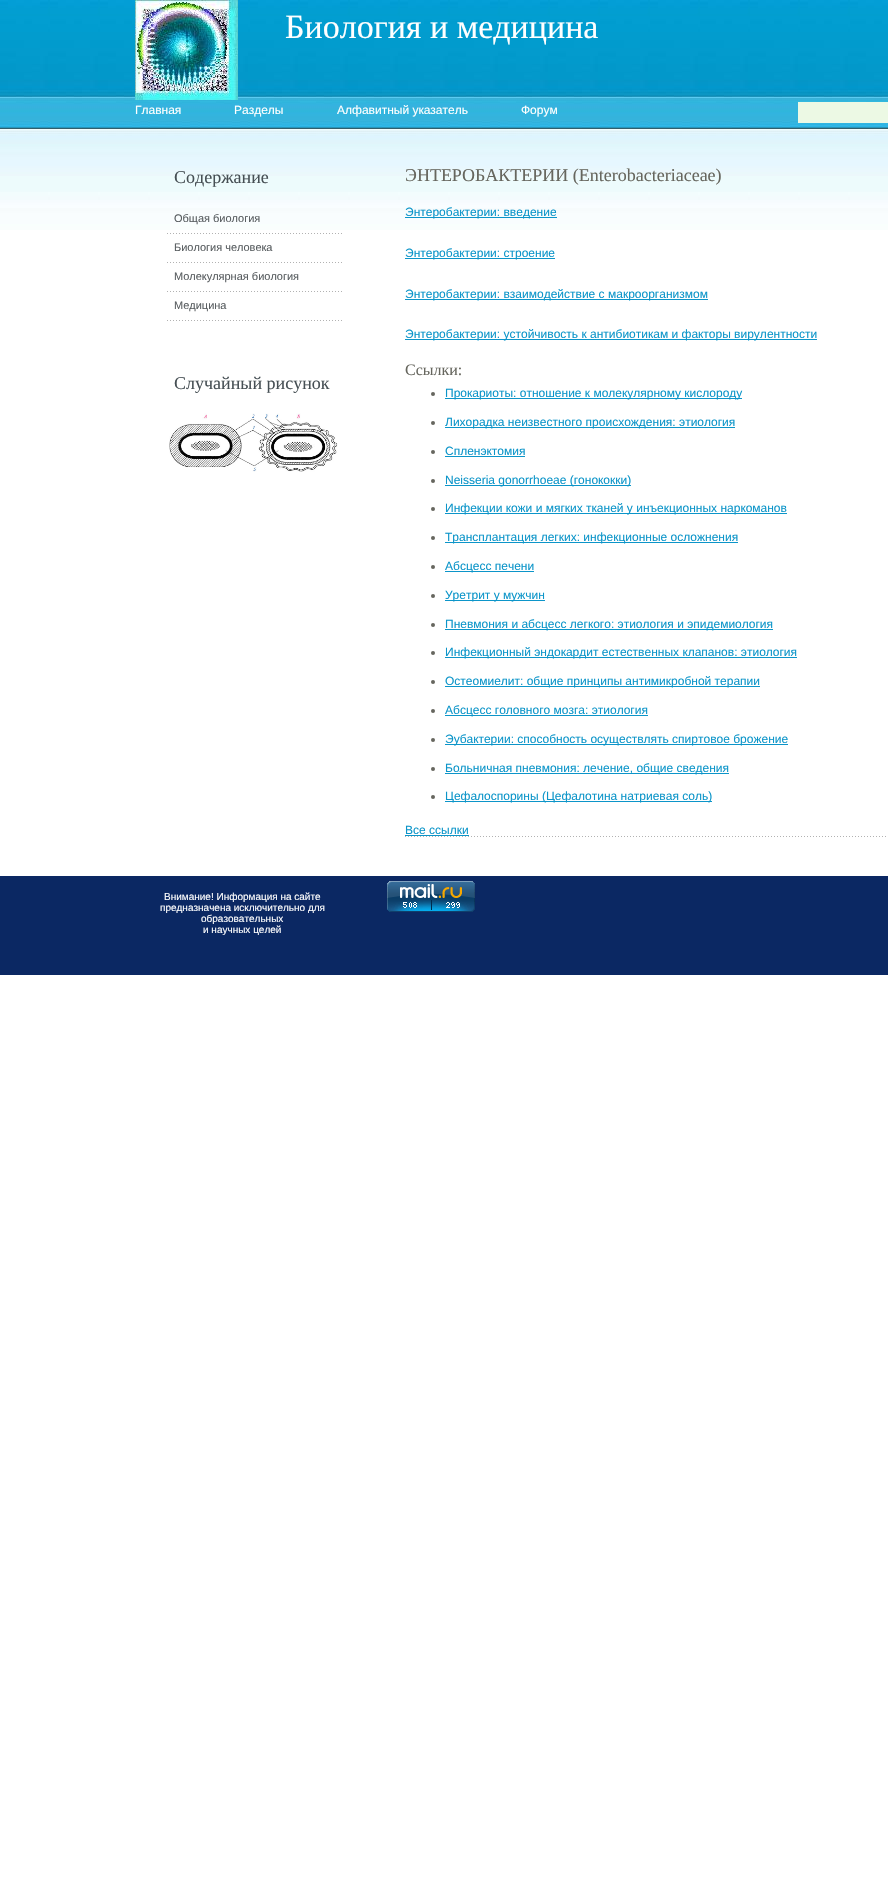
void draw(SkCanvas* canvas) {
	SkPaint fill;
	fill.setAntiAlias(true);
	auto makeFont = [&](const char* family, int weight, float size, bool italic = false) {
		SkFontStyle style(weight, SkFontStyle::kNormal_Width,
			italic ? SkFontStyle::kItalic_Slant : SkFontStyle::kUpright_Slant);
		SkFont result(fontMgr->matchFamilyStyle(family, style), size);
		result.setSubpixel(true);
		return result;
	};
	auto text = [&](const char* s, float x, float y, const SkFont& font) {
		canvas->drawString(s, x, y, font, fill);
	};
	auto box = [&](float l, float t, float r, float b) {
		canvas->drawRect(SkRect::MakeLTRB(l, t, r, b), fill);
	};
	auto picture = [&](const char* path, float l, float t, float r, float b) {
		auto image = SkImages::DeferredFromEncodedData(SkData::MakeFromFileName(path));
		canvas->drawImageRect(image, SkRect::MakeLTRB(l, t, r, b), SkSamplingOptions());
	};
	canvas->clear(0xFFFFFFFF);
	picture("image0.png", 0, 0, 888, 230);
	picture("image1.png", 135, 0, 238, 100);
	fill.setColor(0xFFECF9E4);
	box(798, 102, 888, 123);
	picture("image2.png", 167, 233, 342, 234);
	picture("image2.png", 167, 262, 342, 263);
	picture("image2.png", 167, 291, 342, 292);
	picture("image2.png", 167, 320, 342, 321);
	picture("image3.png", 169, 413, 338, 472);
	picture("image4.png", 405, 836, 886, 837);
	fill.setColor(0xFF0C95C9);
	box(405, 217, 557, 218);
	box(405, 258, 555, 259);
	box(405, 299, 708, 300);
	box(405, 339, 817, 340);
	fill.setColor(0xFF66665E);
	canvas->drawCircle(433, 394, 2, fill);
	fill.setColor(0xFF0C95C9);
	box(445, 398, 742, 399);
	fill.setColor(0xFF66665E);
	canvas->drawCircle(433, 423, 2, fill);
	fill.setColor(0xFF0C95C9);
	box(445, 427, 735, 428);
	fill.setColor(0xFF66665E);
	canvas->drawCircle(433, 452, 2, fill);
	fill.setColor(0xFF0C95C9);
	box(445, 456, 525, 457);
	fill.setColor(0xFF66665E);
	canvas->drawCircle(433, 481, 2, fill);
	fill.setColor(0xFF0C95C9);
	box(445, 485, 631, 486);
	fill.setColor(0xFF66665E);
	canvas->drawCircle(433, 509, 2, fill);
	fill.setColor(0xFF0C95C9);
	box(445, 513, 787, 514);
	fill.setColor(0xFF66665E);
	canvas->drawCircle(433, 538, 2, fill);
	fill.setColor(0xFF0C95C9);
	box(445, 542, 738, 543);
	fill.setColor(0xFF66665E);
	canvas->drawCircle(433, 567, 2, fill);
	fill.setColor(0xFF0C95C9);
	box(445, 571, 534, 572);
	fill.setColor(0xFF66665E);
	canvas->drawCircle(433, 596, 2, fill);
	fill.setColor(0xFF0C95C9);
	box(445, 600, 545, 601);
	fill.setColor(0xFF66665E);
	canvas->drawCircle(433, 625, 2, fill);
	fill.setColor(0xFF0C95C9);
	box(445, 629, 773, 630);
	fill.setColor(0xFF66665E);
	canvas->drawCircle(433, 653, 2, fill);
	fill.setColor(0xFF0C95C9);
	box(445, 657, 797, 658);
	fill.setColor(0xFF66665E);
	canvas->drawCircle(433, 682, 2, fill);
	fill.setColor(0xFF0C95C9);
	box(445, 686, 760, 687);
	fill.setColor(0xFF66665E);
	canvas->drawCircle(433, 711, 2, fill);
	fill.setColor(0xFF0C95C9);
	box(445, 715, 648, 716);
	fill.setColor(0xFF66665E);
	canvas->drawCircle(433, 740, 2, fill);
	fill.setColor(0xFF0C95C9);
	box(445, 744, 788, 745);
	fill.setColor(0xFF66665E);
	canvas->drawCircle(433, 769, 2, fill);
	fill.setColor(0xFF0C95C9);
	box(445, 773, 729, 774);
	fill.setColor(0xFF66665E);
	canvas->drawCircle(433, 797, 2, fill);
	fill.setColor(0xFF0C95C9);
	box(445, 801, 712, 802);
	box(405, 835, 469, 836);
	fill.setColor(0xFF0B2863);
	box(0, 876, 888, 975);
	picture("image5.png", 387, 881, 475, 912);
	auto font1 = makeFont("Liberation Serif", 400, 34);
	fill.setColor(0xFFFFFFFF);
	text("Биология и медицина", 285, 38, font1);
	auto font2 = makeFont("Liberation Sans", 400, 12);
	text("Главная", 135, 114, font2);
	text("Разделы", 234, 114, font2);
	text("Алфавитный указатель", 337, 114, font2);
	text("Форум", 521, 114, font2);
	auto font3 = makeFont("Liberation Serif", 400, 18);
	fill.setColor(0xFF464F54);
	text("Содержание", 174, 183, font3);
	auto font4 = makeFont("Liberation Sans", 400, 11);
	fill.setColor(0xFF585D60);
	text("Общая биология", 174, 222, font4);
	text("Биология человека", 174, 251, font4);
	text("Молекулярная биология", 174, 280, font4);
	text("Медицина", 174, 309, font4);
	fill.setColor(0xFF464F54);
	text("Случайный рисунок", 174, 389, font3);
	fill.setColor(0xFF66665E);
	text("ЭНТЕРОБАКТЕРИИ (Enterobacteriaceae)", 405, 181, font3);
	fill.setColor(0xFF0C95C9);
	text("Энтеробактерии: введение", 405, 216, font2);
	text("Энтеробактерии: строение", 405, 257, font2);
	text("Энтеробактерии: взаимодействие с макроорганизмом", 405, 298, font2);
	text("Энтеробактерии: устойчивость к антибиотикам и факторы вирулентности", 405, 338, font2);
	auto font5 = makeFont("Liberation Serif", 400, 16);
	fill.setColor(0xFF66665E);
	text("Ссылки:", 405, 375, font5);
	fill.setColor(0xFF0C95C9);
	text("Прокариоты: отношение к молекулярному кислороду", 445, 397, font2);
	text("Лихорадка неизвестного происхождения: этиология", 445, 426, font2);
	text("Спленэктомия", 445, 455, font2);
	text("Neisseria gonorrhoeae (гонококки)", 445, 484, font2);
	text("Инфекции кожи и мягких тканей у инъекционных наркоманов", 445, 512, font2);
	text("Трансплантация легких: инфекционные осложнения", 445, 541, font2);
	text("Абсцесс печени", 445, 570, font2);
	text("Уретрит у мужчин", 445, 599, font2);
	text("Пневмония и абсцесс легкого: этиология и эпидемиология", 445, 628, font2);
	text("Инфекционный эндокардит естественных клапанов: этиология", 445, 656, font2);
	text("Остеомиелит: общие принципы антимикробной терапии", 445, 685, font2);
	text("Абсцесс головного мозга: этиология", 445, 714, font2);
	text("Эубактерии: способность осуществлять спиртовое брожение", 445, 743, font2);
	text("Больничная пневмония: лечение, общие сведения", 445, 772, font2);
	text("Цефалоспорины (Цефалотина натриевая соль)", 445, 800, font2);
	text("Все ссылки", 405, 834, font2);
	auto font6 = makeFont("Liberation Sans", 400, 10);
	fill.setColor(0xFFFFFFFF);
	text("Внимание! Информация на сайте", 164, 900, font6);
	text("предназначена исключительно для", 160, 911, font6);
	text("образовательных", 201, 922, font6);
	text("и научных целей", 203, 933, font6);
}
